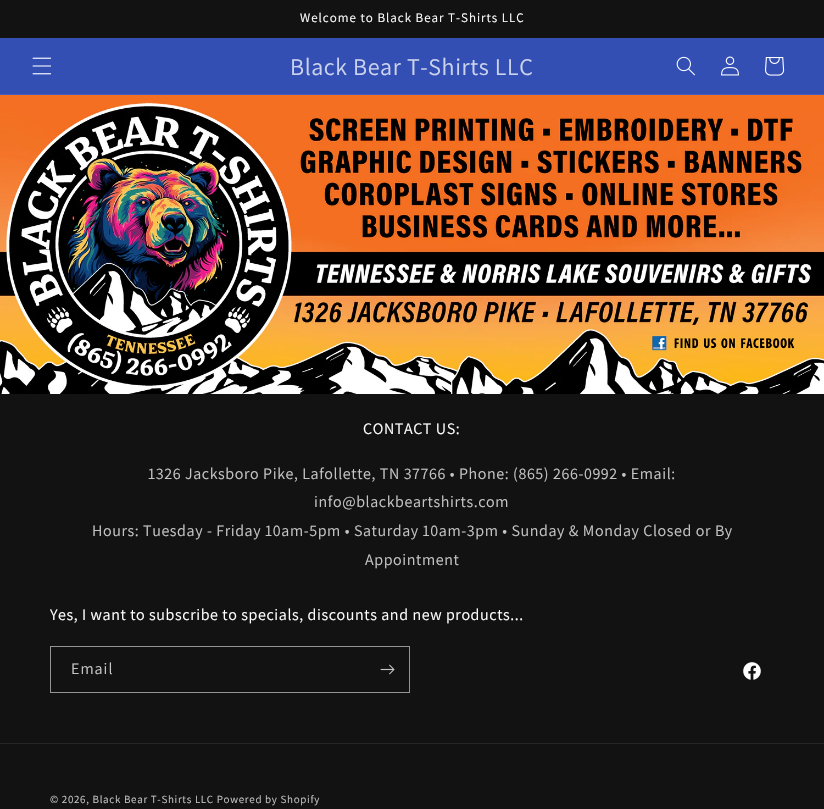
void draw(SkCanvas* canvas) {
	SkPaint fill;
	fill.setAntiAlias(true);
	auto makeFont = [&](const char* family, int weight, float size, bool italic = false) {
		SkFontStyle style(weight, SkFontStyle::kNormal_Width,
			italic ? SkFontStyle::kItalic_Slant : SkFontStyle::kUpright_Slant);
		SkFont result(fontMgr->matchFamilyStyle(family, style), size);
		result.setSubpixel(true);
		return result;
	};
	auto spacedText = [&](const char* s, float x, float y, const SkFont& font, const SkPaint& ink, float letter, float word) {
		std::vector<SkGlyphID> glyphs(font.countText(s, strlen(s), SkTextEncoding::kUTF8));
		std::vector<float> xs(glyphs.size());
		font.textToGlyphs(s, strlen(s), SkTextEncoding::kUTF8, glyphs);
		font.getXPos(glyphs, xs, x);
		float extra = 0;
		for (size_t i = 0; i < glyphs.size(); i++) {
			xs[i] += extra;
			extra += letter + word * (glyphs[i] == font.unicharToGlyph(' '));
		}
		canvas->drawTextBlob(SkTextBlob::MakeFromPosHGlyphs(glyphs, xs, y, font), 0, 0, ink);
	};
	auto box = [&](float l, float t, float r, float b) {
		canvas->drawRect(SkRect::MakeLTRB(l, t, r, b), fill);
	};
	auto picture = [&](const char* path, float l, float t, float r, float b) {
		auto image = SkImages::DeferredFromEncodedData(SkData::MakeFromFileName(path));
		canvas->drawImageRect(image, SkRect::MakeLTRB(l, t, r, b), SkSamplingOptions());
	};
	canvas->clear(0xFF121212);
	fill.setColor(0xFF334FB4);
	box(0, 38, 824, 94);
	fill.setColor(0xFF435DBA);
	box(0, 94, 824, 95);
	picture("image0.png", 32, 57, 52, 75);
	picture("image1.png", 676, 56, 695, 76);
	picture("image2.png", 721, 56, 739, 76);
	picture("image3.png", 765, 57, 785, 76);
	picture("image4.png", 0, 95, 824, 394);
	fill.setStyle(SkPaint::kStroke_Style);
	fill.setStrokeWidth(1);
	fill.setColor(0xFF949494);
	canvas->drawRect(SkRect::MakeLTRB(50.5f, 646.5f, 409.5f, 692.5f), fill);
	picture("image5.png", 380, 664, 395, 675);
	picture("image6.png", 743, 662, 761, 680);
	fill.setStyle(SkPaint::kFill_Style);
	fill.setColor(0xFF252525);
	box(0, 743, 824, 744);
	auto font1 = makeFont("Assistant", 400, 13);
	fill.setColor(0xFFFFFFFF);
	spacedText("Welcome to Black Bear T-Shirts LLC", 300, 22, font1, fill, 1, 0);
	auto font2 = makeFont("Assistant", 400, 24);
	fill.setColor(0xFFCCD3EC);
	spacedText("Black Bear T-Shirts LLC", 290, 75, font2, fill, 0.6f, 0);
	auto font3 = makeFont("Assistant", 400, 16);
	fill.setColor(0xFFFFFFFF);
	spacedText("CONTACT US:", 363, 434, font3, fill, 0.6f, 0);
	fill.setColor(0xFFC4C4C4);
	spacedText("1326 Jacksboro Pike, Lafollette, TN 37766 • Phone: (865) 266-0992 • Email:", 148, 479, font3, fill, 0.6f, 0);
	spacedText("info@blackbeartshirts.com", 314, 507, font3, fill, 0.6f, 0);
	spacedText("Hours: Tuesday - Friday 10am-5pm • Saturday 10am-3pm • Sunday & Monday Closed or By", 92, 536, font3, fill, 0.6f, 0);
	spacedText("Appointment", 365, 565, font3, fill, 0.6f, 0);
	fill.setColor(0xFFFFFFFF);
	spacedText("Yes, I want to subscribe to specials, discounts and new products...", 50, 620, font3, fill, 0.6f, 0);
	fill.setColor(0xFFC4C4C4);
	spacedText("Email", 71, 674, font3, fill, 1, 0);
	auto font4 = makeFont("Assistant", 400, 11);
	spacedText("© 2026, Black Bear T-Shirts LLC Powered by Shopify", 50, 803, font4, fill, 0.7f, 0);
}
